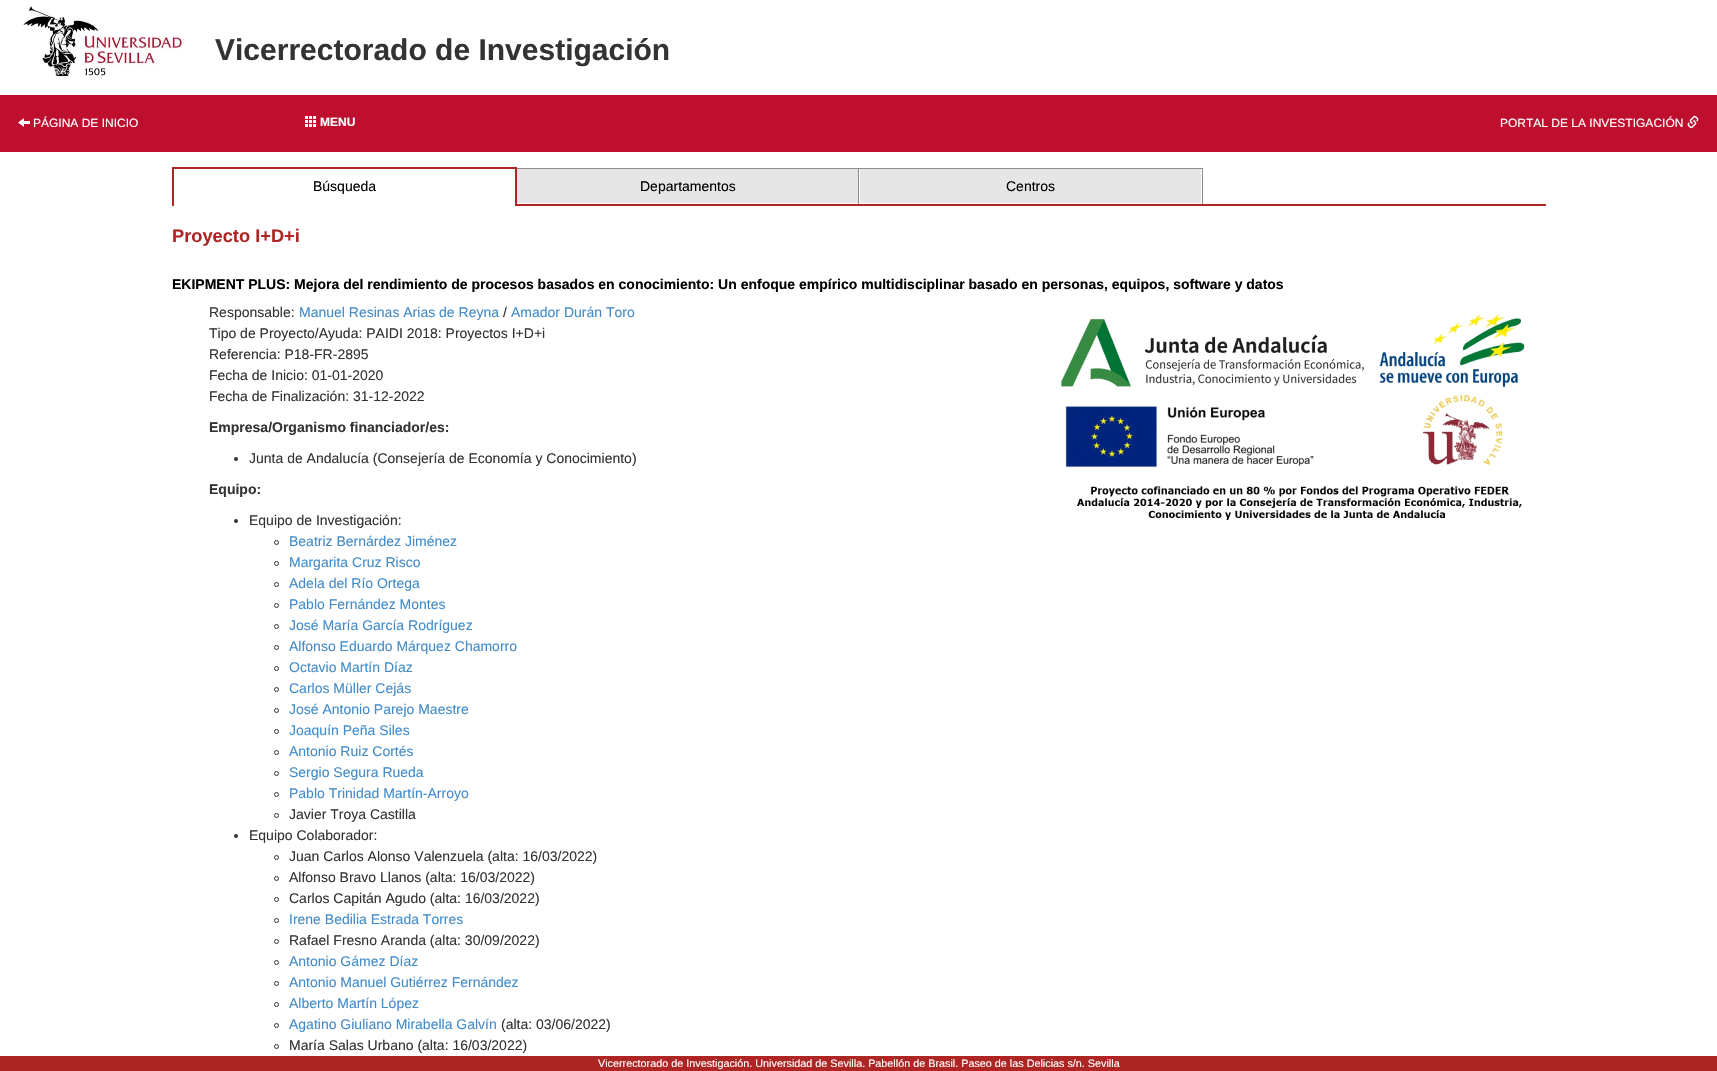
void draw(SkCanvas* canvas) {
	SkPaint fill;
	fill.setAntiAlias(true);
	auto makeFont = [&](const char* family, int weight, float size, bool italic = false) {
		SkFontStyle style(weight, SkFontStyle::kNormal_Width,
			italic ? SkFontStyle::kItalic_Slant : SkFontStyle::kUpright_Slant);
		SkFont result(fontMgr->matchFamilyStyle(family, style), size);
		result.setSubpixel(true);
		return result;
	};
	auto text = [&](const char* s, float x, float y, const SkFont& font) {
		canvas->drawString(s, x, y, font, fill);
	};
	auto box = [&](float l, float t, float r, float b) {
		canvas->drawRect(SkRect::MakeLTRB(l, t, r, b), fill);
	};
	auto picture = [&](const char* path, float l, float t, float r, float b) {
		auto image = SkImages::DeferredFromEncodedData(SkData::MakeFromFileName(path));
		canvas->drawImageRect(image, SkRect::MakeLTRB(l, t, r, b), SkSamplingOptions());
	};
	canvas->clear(0xFFFFFFFF);
	picture("image0.png", 23, 6, 183, 77);
	fill.setColor(0xFFBE0F2E);
	box(0, 95, 1717, 152);
	picture("image1.png", 18, 118, 30, 127);
	picture("image2.png", 305, 116, 316, 127);
	picture("image3.png", 1687, 115, 1699, 129);
	fill.setColor(0xFF8D8A8A);
	box(1202, 168, 1203, 205);
	box(858, 168, 1203, 169);
	box(858, 168, 859, 205);
	box(515, 168, 859, 169);
	fill.setColor(0xFFAD2624);
	box(172, 167, 517, 169);
	box(515, 204, 1546, 206);
	box(515, 167, 517, 206);
	box(172, 167, 174, 206);
	fill.setColor(0xFFE6E6E6);
	box(517, 169, 858, 203);
	box(860, 169, 1201, 203);
	picture("image4.png", 1061, 313, 1525, 520);
	fill.setColor(0xFF333333);
	canvas->drawCircle(236, 459, 2, fill);
	canvas->drawCircle(236, 521, 2, fill);
	fill.setStyle(SkPaint::kStroke_Style);
	fill.setStrokeWidth(1);
	canvas->drawCircle(276.5f, 542.5f, 2, fill);
	canvas->drawCircle(276.5f, 563.5f, 2, fill);
	canvas->drawCircle(276.5f, 584.5f, 2, fill);
	canvas->drawCircle(276.5f, 605.5f, 2, fill);
	canvas->drawCircle(276.5f, 626.5f, 2, fill);
	canvas->drawCircle(276.5f, 647.5f, 2, fill);
	canvas->drawCircle(276.5f, 668.5f, 2, fill);
	canvas->drawCircle(276.5f, 689.5f, 2, fill);
	canvas->drawCircle(276.5f, 710.5f, 2, fill);
	canvas->drawCircle(276.5f, 731.5f, 2, fill);
	canvas->drawCircle(276.5f, 752.5f, 2, fill);
	canvas->drawCircle(276.5f, 773.5f, 2, fill);
	canvas->drawCircle(276.5f, 794.5f, 2, fill);
	canvas->drawCircle(276.5f, 815.5f, 2, fill);
	fill.setStyle(SkPaint::kFill_Style);
	canvas->drawCircle(236, 836, 2, fill);
	fill.setStyle(SkPaint::kStroke_Style);
	canvas->drawCircle(276.5f, 857.5f, 2, fill);
	canvas->drawCircle(276.5f, 878.5f, 2, fill);
	canvas->drawCircle(276.5f, 899.5f, 2, fill);
	canvas->drawCircle(276.5f, 920.5f, 2, fill);
	canvas->drawCircle(276.5f, 941.5f, 2, fill);
	canvas->drawCircle(276.5f, 962.5f, 2, fill);
	canvas->drawCircle(276.5f, 983.5f, 2, fill);
	canvas->drawCircle(276.5f, 1004.5f, 2, fill);
	canvas->drawCircle(276.5f, 1025.5f, 2, fill);
	canvas->drawCircle(276.5f, 1046.5f, 2, fill);
	fill.setStyle(SkPaint::kFill_Style);
	fill.setColor(0xFFAD2624);
	box(0, 1056, 1717, 1071);
	auto font1 = makeFont("Liberation Sans", 700, 30);
	fill.setColor(0xFF333333);
	text("Vicerrectorado de Investigación", 215, 60, font1);
	auto font2 = makeFont("Liberation Sans", 400, 12);
	fill.setColor(0xFFFFFFFF);
	text("PÁGINA DE INICIO", 33, 127, font2);
	auto font3 = makeFont("Liberation Sans", 700, 12);
	text("MENU", 320, 126, font3);
	text("PORTAL DE LA INVESTIGACIÓN", 1500, 127, font2);
	auto font4 = makeFont("Liberation Sans", 400, 14);
	fill.setColor(0xFF000000);
	text("Búsqueda", 313, 191, font4);
	text("Departamentos", 640, 191, font4);
	text("Centros", 1006, 191, font4);
	auto font5 = makeFont("Liberation Sans", 700, 18.25f);
	fill.setColor(0xFFAD2624);
	text("Proyecto I+D+i", 172, 242, font5);
	auto font6 = makeFont("Liberation Sans", 700, 14);
	fill.setColor(0xFF000000);
	text("EKIPMENT PLUS: Mejora del rendimiento de procesos basados en conocimiento: Un enfoque empírico multidisciplinar basado en personas, equipos, software y datos", 172, 289, font6);
	fill.setColor(0xFF333333);
	text("Responsable:", 209, 317, font4);
	fill.setColor(0xFF428BCA);
	text("Manuel Resinas Arias de Reyna", 299, 317, font4);
	fill.setColor(0xFF333333);
	text("/", 503, 317, font4);
	fill.setColor(0xFF428BCA);
	text("Amador Durán Toro", 511, 317, font4);
	fill.setColor(0xFF333333);
	text("Tipo de Proyecto/Ayuda: PAIDI 2018: Proyectos I+D+i", 209, 338, font4);
	text("Referencia: P18-FR-2895", 209, 359, font4);
	text("Fecha de Inicio: 01-01-2020", 209, 380, font4);
	text("Fecha de Finalización: 31-12-2022", 209, 401, font4);
	text("Empresa/Organismo financiador/es:", 209, 432, font6);
	text("Junta de Andalucía (Consejería de Economía y Conocimiento)", 249, 463, font4);
	text("Equipo:", 209, 494, font6);
	text("Equipo de Investigación:", 249, 525, font4);
	fill.setColor(0xFF428BCA);
	text("Beatriz Bernárdez Jiménez", 289, 546, font4);
	text("Margarita Cruz Risco", 289, 567, font4);
	text("Adela del Río Ortega", 289, 588, font4);
	text("Pablo Fernández Montes", 289, 609, font4);
	text("José María García Rodríguez", 289, 630, font4);
	text("Alfonso Eduardo Márquez Chamorro", 289, 651, font4);
	text("Octavio Martín Díaz", 289, 672, font4);
	text("Carlos Müller Cejás", 289, 693, font4);
	text("José Antonio Parejo Maestre", 289, 714, font4);
	text("Joaquín Peña Siles", 289, 735, font4);
	text("Antonio Ruiz Cortés", 289, 756, font4);
	text("Sergio Segura Rueda", 289, 777, font4);
	text("Pablo Trinidad Martín-Arroyo", 289, 798, font4);
	fill.setColor(0xFF333333);
	text("Javier Troya Castilla", 289, 819, font4);
	text("Equipo Colaborador:", 249, 840, font4);
	text("Juan Carlos Alonso Valenzuela (alta: 16/03/2022)", 289, 861, font4);
	text("Alfonso Bravo Llanos (alta: 16/03/2022)", 289, 882, font4);
	text("Carlos Capitán Agudo (alta: 16/03/2022)", 289, 903, font4);
	fill.setColor(0xFF428BCA);
	text("Irene Bedilia Estrada Torres", 289, 924, font4);
	fill.setColor(0xFF333333);
	text("Rafael Fresno Aranda (alta: 30/09/2022)", 289, 945, font4);
	fill.setColor(0xFF428BCA);
	text("Antonio Gámez Díaz", 289, 966, font4);
	text("Antonio Manuel Gutiérrez Fernández", 289, 987, font4);
	text("Alberto Martín López", 289, 1008, font4);
	text("Agatino Giuliano Mirabella Galvín", 289, 1029, font4);
	fill.setColor(0xFF333333);
	text("(alta: 03/06/2022)", 501, 1029, font4);
	text("María Salas Urbano (alta: 16/03/2022)", 289, 1050, font4);
	auto font7 = makeFont("Liberation Sans", 400, 10.8f);
	fill.setColor(0xFFFFFFFF);
	text("Vicerrectorado de Investigación. Universidad de Sevilla. Pabellón de Brasil. Paseo de las Delicias s/n. Sevilla", 598, 1067, font7);
}
